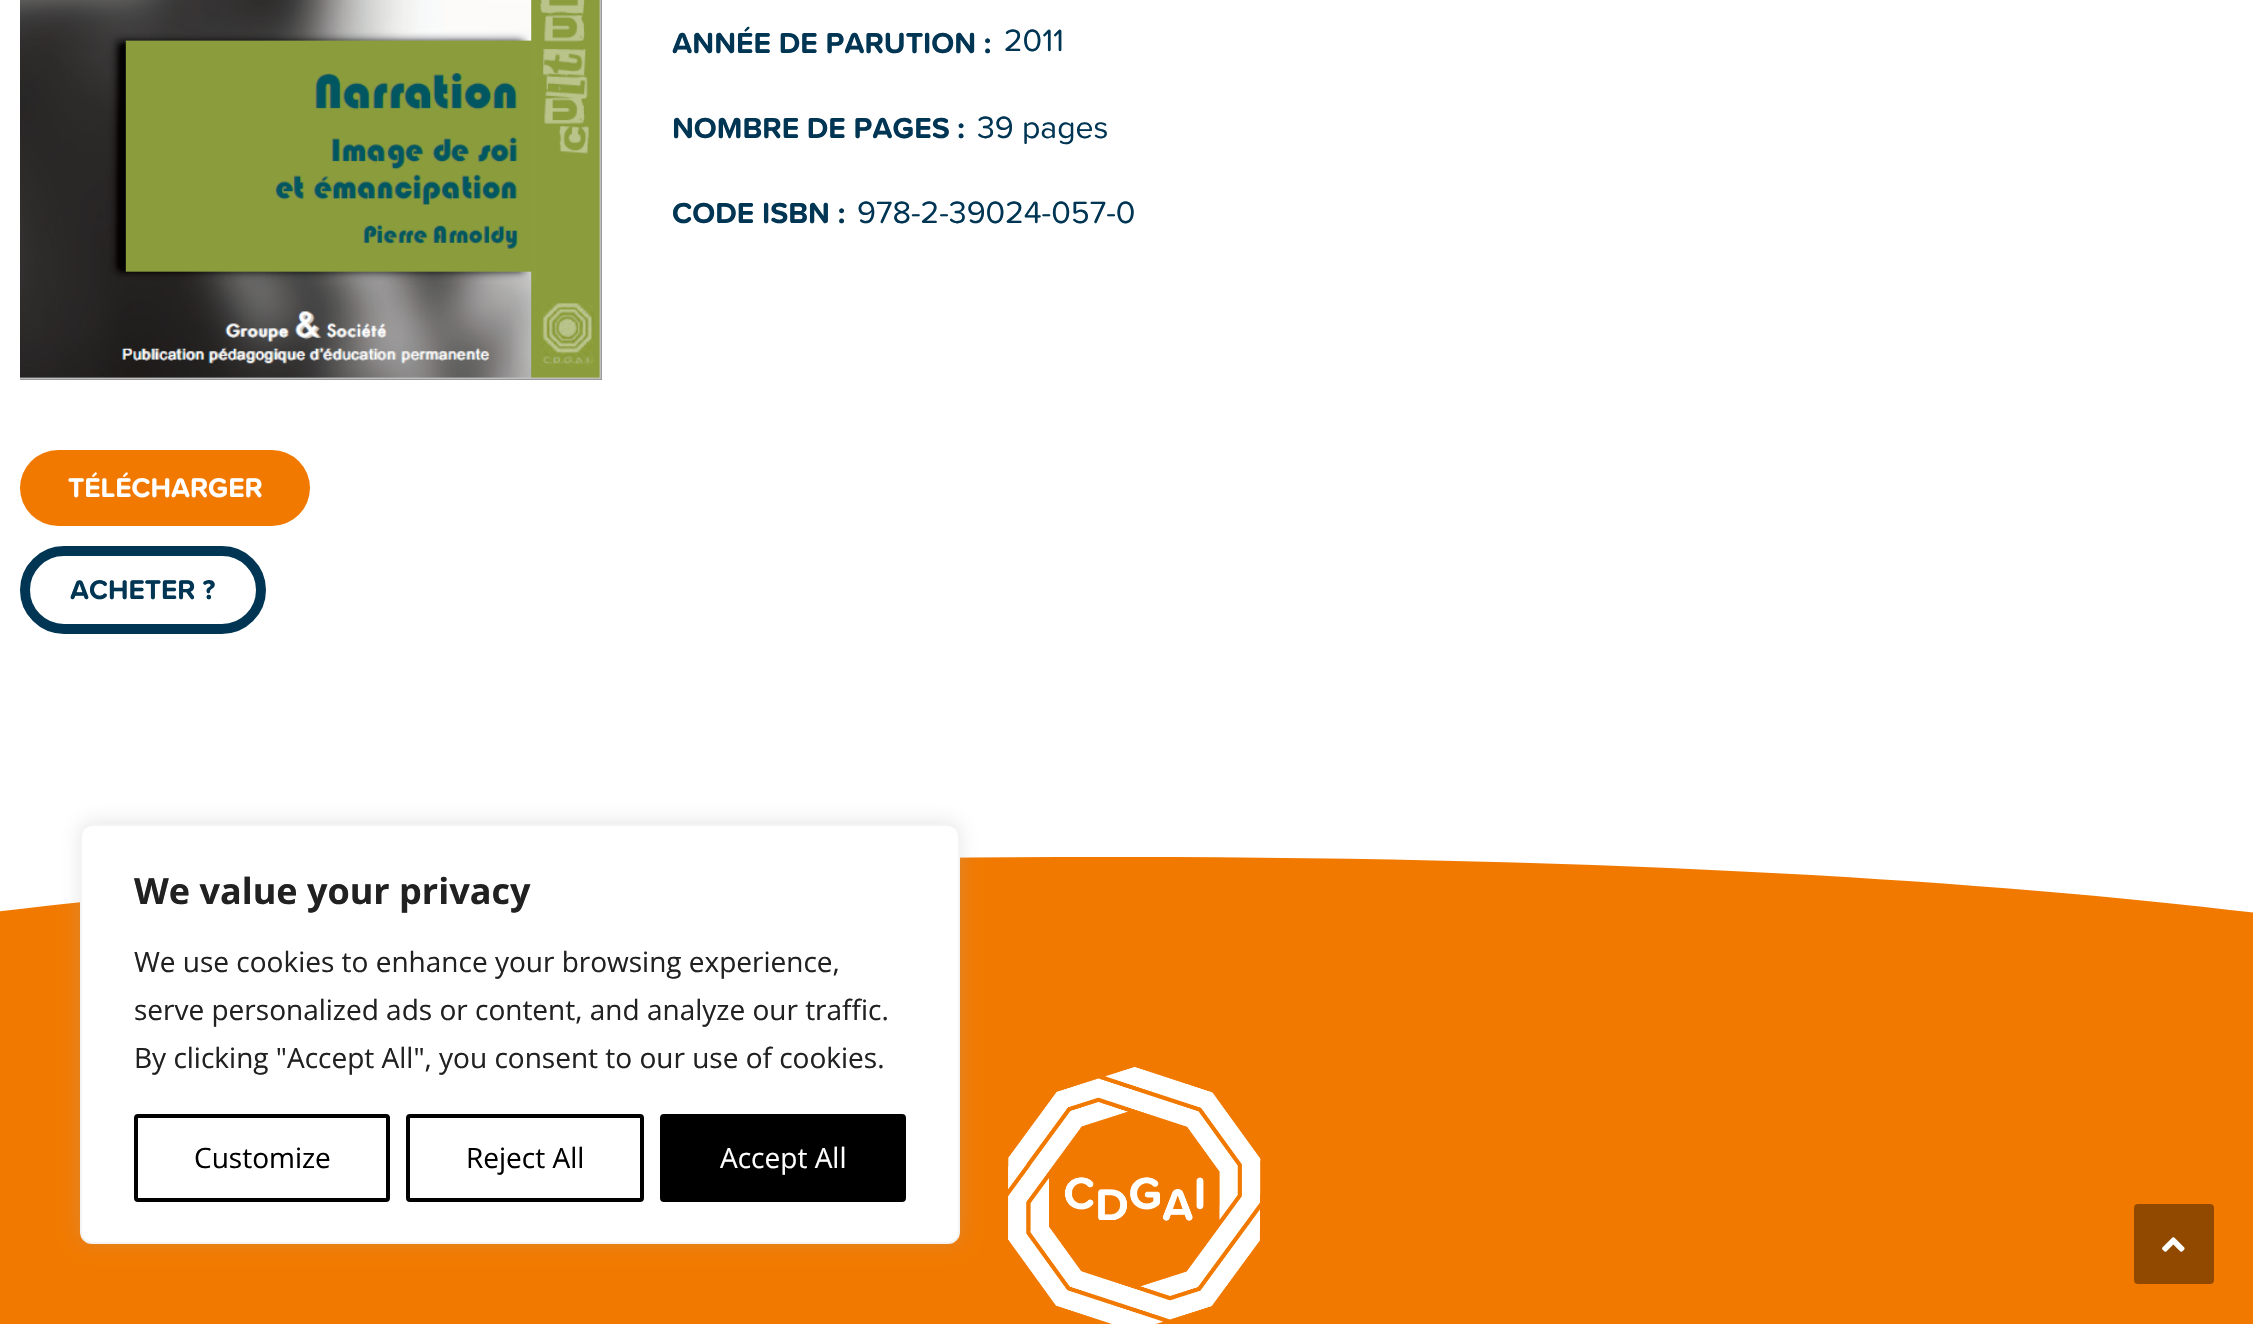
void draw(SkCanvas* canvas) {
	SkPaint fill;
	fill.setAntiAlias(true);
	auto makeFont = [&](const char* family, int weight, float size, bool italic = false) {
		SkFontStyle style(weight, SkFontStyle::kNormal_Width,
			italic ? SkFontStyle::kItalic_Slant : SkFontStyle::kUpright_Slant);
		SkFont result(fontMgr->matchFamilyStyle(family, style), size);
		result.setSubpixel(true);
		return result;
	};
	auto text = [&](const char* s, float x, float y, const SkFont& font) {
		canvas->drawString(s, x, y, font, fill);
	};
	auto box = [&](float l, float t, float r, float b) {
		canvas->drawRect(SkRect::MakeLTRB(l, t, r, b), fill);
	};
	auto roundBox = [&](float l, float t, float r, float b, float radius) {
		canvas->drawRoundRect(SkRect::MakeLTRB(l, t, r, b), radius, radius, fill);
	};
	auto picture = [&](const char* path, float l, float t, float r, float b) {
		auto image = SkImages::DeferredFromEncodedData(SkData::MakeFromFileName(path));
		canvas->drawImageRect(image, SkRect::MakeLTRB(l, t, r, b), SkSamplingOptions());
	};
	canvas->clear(0xFFFFFFFF);
	picture("image0.png", 20, 0, 602, 380);
	fill.setColor(0xFFF17900);
	roundBox(20, 450, 310, 526, 38);
	fill.setStyle(SkPaint::kStroke_Style);
	fill.setStrokeWidth(10);
	fill.setColor(0xFF003554);
	canvas->drawRoundRect(SkRect::MakeLTRB(25, 551, 261, 629), 39, 39, fill);
	fill.setStyle(SkPaint::kFill_Style);
	fill.setColor(0xFFF17900);
	box(0, 857, 2253, 1324);
	canvas->save();
	canvas->clipRect(SkRect::MakeLTRB(0, 852, 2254, 1052));
	fill.setColor(0xFFFFFFFF);
	canvas->drawPath(SkPathBuilder().moveTo(1126, 857).cubicTo(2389, 858, 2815, 1011, 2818, 1051).lineTo(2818, 851).lineTo(-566, 851).lineTo(-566, 1049).cubicTo(-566, 1012, -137, 855, 1126, 857).close().detach(), fill);
	canvas->restore();
	picture("image1.png", 1008, 1067, 1261, 1324);
	fill.setColor(0x4DACABAB);
	fill.setMaskFilter(SkMaskFilter::MakeBlur(kNormal_SkBlurStyle, 10));
	canvas->drawRoundRect(SkRect::MakeLTRB(80, 822, 960, 1242), 12, 12, fill);
	fill.setMaskFilter(nullptr);
	fill.setColor(0xFFFFFFFF);
	canvas->drawRoundRect(SkRect::MakeLTRB(81, 825, 959, 1243), 11, 11, fill);
	fill.setStyle(SkPaint::kStroke_Style);
	fill.setStrokeWidth(2);
	fill.setColor(0xFFF4F4F4);
	canvas->drawRoundRect(SkRect::MakeLTRB(81, 825, 959, 1243), 11, 11, fill);
	fill.setStrokeWidth(4);
	fill.setColor(0xFF000000);
	canvas->drawRoundRect(SkRect::MakeLTRB(136, 1116, 388, 1200), 2, 2, fill);
	canvas->drawRoundRect(SkRect::MakeLTRB(408, 1116, 642, 1200), 2, 2, fill);
	fill.setStyle(SkPaint::kFill_Style);
	canvas->drawRoundRect(SkRect::MakeLTRB(662, 1116, 904, 1200), 2, 2, fill);
	fill.setStyle(SkPaint::kStroke_Style);
	canvas->drawRoundRect(SkRect::MakeLTRB(662, 1116, 904, 1200), 2, 2, fill);
	fill.setStyle(SkPaint::kFill_Style);
	fill.setColor(0xFF914900);
	roundBox(2134, 1204, 2214, 1284, 4);
	picture("image2.png", 2162, 1237, 2185, 1252);
	auto font1 = makeFont("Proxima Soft", 700, 30);
	fill.setColor(0xFF003554);
	text("ANNÉE DE PARUTION :", 672, 53, font1);
	auto font2 = makeFont("Proxima Soft", 400, 32);
	text("2011", 1004, 51, font2);
	text("NOMBRE DE PAGES :", 672, 138, font1);
	text("39 pages", 977, 138, font2);
	text("CODE ISBN :", 672, 223, font1);
	text("978-2-39024-057-0", 857, 223, font2);
	auto font3 = makeFont("Proxima Soft", 700, 28);
	fill.setColor(0xFFFFFFFF);
	text("TÉLÉCHARGER", 68, 497, font3);
	fill.setColor(0xFF003554);
	text("ACHETER ?", 70, 599, font3);
	auto font4 = makeFont("Open Sans", 700, 36);
	fill.setColor(0xFF212121);
	text("We value your privacy", 134, 904, font4);
	auto font5 = makeFont("Open Sans", 400, 28);
	text("We use cookies to enhance your browsing experience,", 134, 972, font5);
	text("serve personalized ads or content, and analyze our traffic.", 134, 1020, font5);
	text("By clicking \"Accept All\", you consent to our use of cookies.", 134, 1068, font5);
	fill.setColor(0xFF000000);
	text("Customize", 194, 1168, font5);
	text("Reject All", 466, 1168, font5);
	fill.setColor(0xFFFFFFFF);
	text("Accept All", 720, 1168, font5);
}
